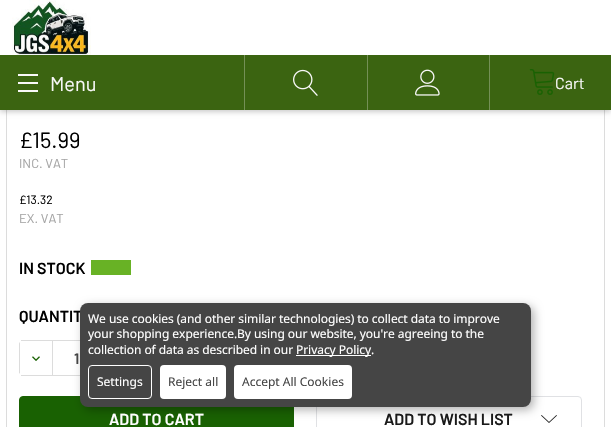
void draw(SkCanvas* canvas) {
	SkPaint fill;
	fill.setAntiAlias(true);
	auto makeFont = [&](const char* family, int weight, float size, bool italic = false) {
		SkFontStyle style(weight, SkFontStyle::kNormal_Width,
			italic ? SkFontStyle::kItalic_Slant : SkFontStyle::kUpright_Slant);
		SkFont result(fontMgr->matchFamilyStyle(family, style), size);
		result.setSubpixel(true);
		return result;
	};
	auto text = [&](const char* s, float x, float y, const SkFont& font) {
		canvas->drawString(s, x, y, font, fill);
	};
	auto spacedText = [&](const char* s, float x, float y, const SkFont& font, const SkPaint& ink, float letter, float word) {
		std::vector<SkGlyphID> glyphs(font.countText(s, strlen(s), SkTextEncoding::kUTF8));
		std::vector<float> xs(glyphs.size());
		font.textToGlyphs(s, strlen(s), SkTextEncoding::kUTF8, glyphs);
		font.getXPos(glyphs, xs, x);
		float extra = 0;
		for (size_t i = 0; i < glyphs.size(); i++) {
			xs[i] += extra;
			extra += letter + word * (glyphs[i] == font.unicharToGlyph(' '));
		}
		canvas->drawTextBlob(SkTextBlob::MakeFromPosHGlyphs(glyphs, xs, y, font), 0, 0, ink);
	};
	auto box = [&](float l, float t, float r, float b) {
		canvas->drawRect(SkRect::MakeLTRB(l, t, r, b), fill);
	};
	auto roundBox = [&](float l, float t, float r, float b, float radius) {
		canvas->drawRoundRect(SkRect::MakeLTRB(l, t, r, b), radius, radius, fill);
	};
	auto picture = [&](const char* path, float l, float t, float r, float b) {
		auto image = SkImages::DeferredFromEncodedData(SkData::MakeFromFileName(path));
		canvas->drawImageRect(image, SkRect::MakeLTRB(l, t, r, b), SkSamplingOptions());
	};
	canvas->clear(0xFFFFFFFF);
	fill.setStyle(SkPaint::kStroke_Style);
	fill.setStrokeWidth(1);
	fill.setColor(0xFFDCDCDC);
	canvas->drawRect(SkRect::MakeLTRB(6.5f, -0.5f, 604.5f, 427.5f), fill);
	fill.setStyle(SkPaint::kFill_Style);
	fill.setColor(0x33000000);
	fill.setMaskFilter(SkMaskFilter::MakeBlur(kNormal_SkBlurStyle, 2.5f));
	canvas->drawRect(SkRect::MakeLTRB(0, 2, 611, 112), fill);
	fill.setMaskFilter(nullptr);
	fill.setColor(0xFFFFFFFF);
	box(0, 0, 611, 55);
	fill.setColor(0xFF3B6411);
	box(0, 55, 244, 110);
	fill.setColor(0xFFF8F8F8);
	box(18, 82, 38, 84);
	box(18, 74, 38, 76);
	box(18, 90, 38, 92);
	picture("image0.png", 12, 0, 91, 55);
	fill.setColor(0xFF3B6411);
	box(245, 55, 367, 110);
	fill.setColor(0xFF749056);
	box(244, 55, 245, 110);
	picture("image1.png", 293, 69, 318, 96);
	fill.setColor(0xFF3B6411);
	box(368, 55, 489, 110);
	fill.setColor(0xFF749056);
	box(367, 55, 368, 110);
	picture("image2.png", 415, 69, 440, 96);
	fill.setColor(0xFF3B6411);
	box(490, 55, 611, 110);
	fill.setColor(0xFF749056);
	box(489, 55, 490, 110);
	picture("image3.png", 529, 69, 555, 95);
	fill.setColor(0xFF68B225);
	box(91, 260, 131, 275);
	fill.setColor(0xFFDCDCDC);
	box(21, 340, 80, 341);
	box(21, 375, 80, 376);
	box(52, 341, 53, 375);
	canvas->drawPath(SkPathBuilder().moveTo(19, 344).lineTo(19, 372.5f).lineTo(20, 374).lineTo(20, 342).cubicTo(19.5f, 342.5f, 19, 343, 19, 344).close().detach(), fill);
	picture("image4.png", 32, 356, 40, 361);
	fill.setColor(0xFF196102);
	canvas->drawRoundRect(SkRect::MakeLTRB(19.5f, 396.5f, 293.5f, 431.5f), 3.5f, 3.5f, fill);
	fill.setStyle(SkPaint::kStroke_Style);
	canvas->drawRoundRect(SkRect::MakeLTRB(19.5f, 396.5f, 293.5f, 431.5f), 3.5f, 3.5f, fill);
	fill.setColor(0xFFE0E1E4);
	canvas->drawRoundRect(SkRect::MakeLTRB(316.5f, 396.5f, 581.5f, 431.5f), 3.5f, 3.5f, fill);
	picture("image5.png", 541, 415, 557, 423);
	fill.setStyle(SkPaint::kFill_Style);
	fill.setColor(0x4D000000);
	fill.setMaskFilter(SkMaskFilter::MakeBlur(kNormal_SkBlurStyle, 5));
	canvas->drawRoundRect(SkRect::MakeLTRB(83, 306, 534, 410), 8, 8, fill);
	fill.setMaskFilter(nullptr);
	auto font1 = makeFont("Barlow", 400, 20);
	fill.setColor(0xFFF8F8F8);
	text("Menu", 50, 91, font1);
	auto font2 = makeFont("Barlow", 400, 16);
	text("Cart", 555, 89, font2);
	auto font3 = makeFont("Barlow", 400, 22);
	fill.setColor(0xFF000000);
	text("£15.99", 19, 148, font3);
	auto font4 = makeFont("Barlow", 400, 13);
	fill.setColor(0xFFA5A5A5);
	text("INC. VAT", 19, 168, font4);
	auto font5 = makeFont("Barlow", 400, 12);
	fill.setColor(0xFF000000);
	text("£13.32", 19, 204, font5);
	fill.setColor(0xFFA5A5A5);
	text("EX. VAT", 19, 223, font4);
	auto font6 = makeFont("Barlow", 600, 16);
	fill.setColor(0xFF000000);
	text("IN STOCK", 19, 274, font6);
	text("QUANTIT", 19, 322, font6);
	auto font7 = makeFont("Barlow", 600, 15);
	fill.setColor(0xFF454545);
	text("1", 74, 364, font7);
	fill.setColor(0xFFFFFFFF);
	text("ADD TO CART", 109, 425, font6);
	fill.setColor(0xFF1A1A1A);
	text("ADD TO WISH LIST", 384, 425, font6);
	fill.setColor(0xFF454545);
	roundBox(80, 303, 531, 407, 8);
	auto font8 = makeFont("Noto Sans", 400, 12);
	fill.setColor(0xFFFFFFFF);
	spacedText("We use cookies (and other similar technologies) to collect data to improve", 88, 323, font8, fill, -0.05f, 0);
	spacedText("your shopping experience.By using our website, you're agreeing to the", 88, 338, font8, fill, -0.05f, 0);
	spacedText("collection of data as described in our", 88, 354, font8, fill, -0.05f, 0);
	box(296, 355, 371, 356);
	spacedText("Privacy Policy.", 296, 354, font8, fill, -0.05f, 0);
	fill.setStyle(SkPaint::kStroke_Style);
	canvas->drawRoundRect(SkRect::MakeLTRB(88.5f, 365.5f, 151.5f, 398.5f), 3.5f, 3.5f, fill);
	fill.setStyle(SkPaint::kFill_Style);
	text("Settings", 97, 386, font8);
	roundBox(160, 365, 226, 399, 4);
	fill.setColor(0xFF454545);
	text("Reject all", 168, 386, font8);
	fill.setColor(0xFFFFFFFF);
	roundBox(234, 365, 352, 399, 4);
	fill.setColor(0xFF454545);
	text("Accept All Cookies", 242, 386, font8);
}
